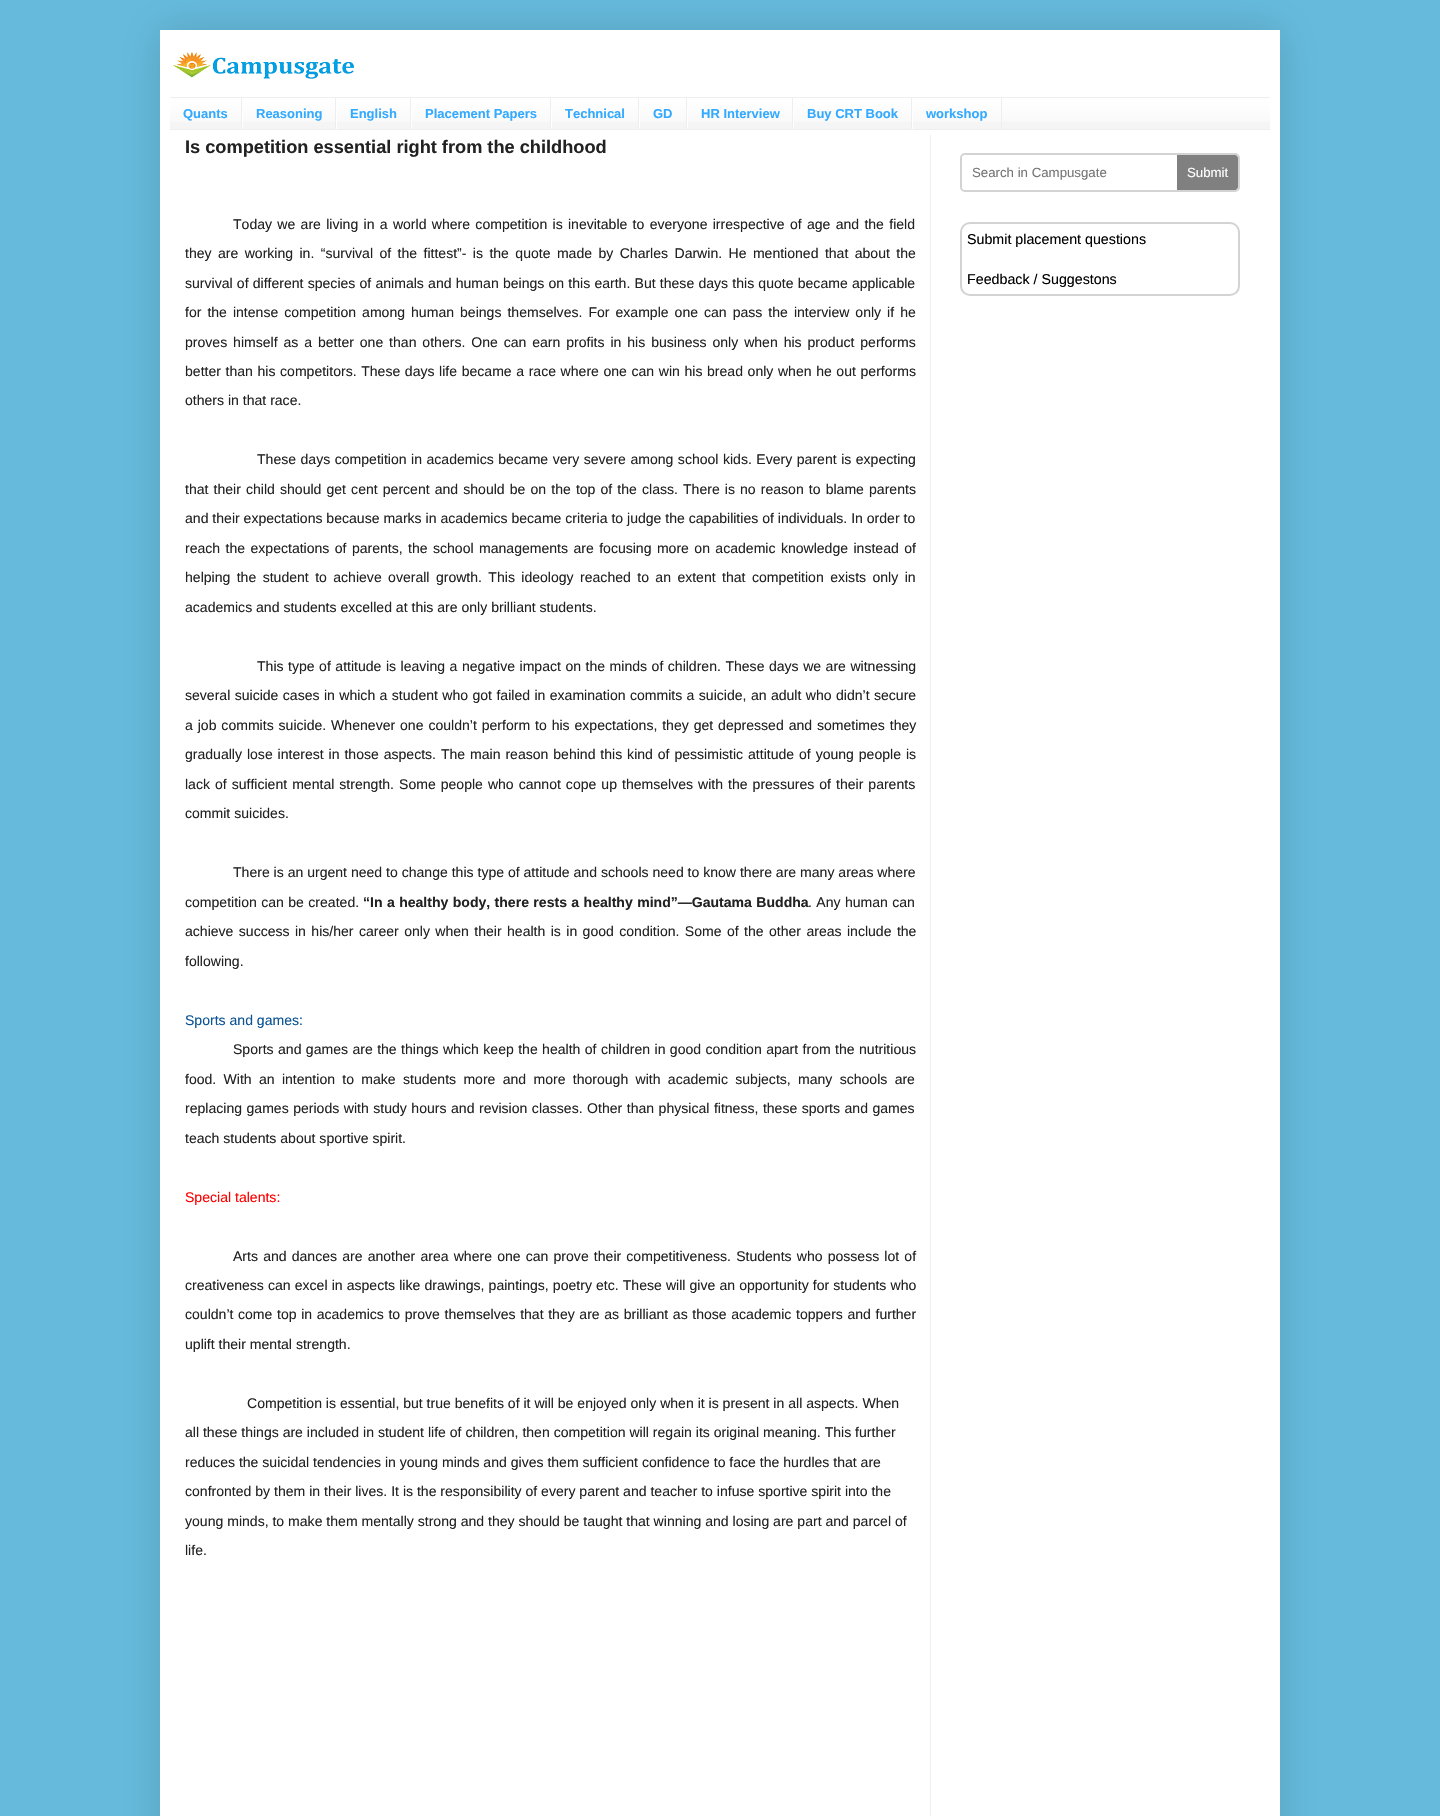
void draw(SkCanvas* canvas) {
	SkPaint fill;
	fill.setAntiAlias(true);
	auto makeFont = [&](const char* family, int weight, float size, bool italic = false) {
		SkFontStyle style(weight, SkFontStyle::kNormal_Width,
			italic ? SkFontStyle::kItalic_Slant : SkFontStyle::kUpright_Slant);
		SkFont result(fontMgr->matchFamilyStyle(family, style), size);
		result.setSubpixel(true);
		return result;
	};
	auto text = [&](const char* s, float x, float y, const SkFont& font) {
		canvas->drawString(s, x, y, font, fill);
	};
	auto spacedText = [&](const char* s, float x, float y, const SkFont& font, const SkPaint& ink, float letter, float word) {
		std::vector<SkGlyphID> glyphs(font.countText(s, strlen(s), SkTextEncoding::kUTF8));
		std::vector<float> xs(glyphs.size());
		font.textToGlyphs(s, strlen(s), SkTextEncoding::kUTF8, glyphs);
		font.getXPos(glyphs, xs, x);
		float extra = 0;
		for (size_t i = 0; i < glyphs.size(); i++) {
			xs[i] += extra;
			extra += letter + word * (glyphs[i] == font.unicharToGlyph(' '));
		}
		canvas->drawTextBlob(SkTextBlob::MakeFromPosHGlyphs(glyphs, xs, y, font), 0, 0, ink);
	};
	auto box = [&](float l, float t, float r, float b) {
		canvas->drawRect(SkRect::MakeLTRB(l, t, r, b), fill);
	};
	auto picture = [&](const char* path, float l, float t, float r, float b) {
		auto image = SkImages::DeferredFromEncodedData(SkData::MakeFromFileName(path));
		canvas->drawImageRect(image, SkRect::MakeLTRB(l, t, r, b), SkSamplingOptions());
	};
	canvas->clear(0xFF66BBDD);
	fill.setColor(0x26000000);
	fill.setMaskFilter(SkMaskFilter::MakeBlur(kNormal_SkBlurStyle, 20));
	canvas->drawRect(SkRect::MakeLTRB(160, 30, 1280, 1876), fill);
	fill.setMaskFilter(nullptr);
	fill.setColor(0xFFFFFFFF);
	box(160, 30, 1280, 1816);
	picture("image0.png", 173, 52, 354, 79);
	fill.setColor(0xFFF5F5F5);
	box(170, 99, 1270, 129);
	picture("image1.png", 170, 98, 1270, 122);
	fill.setColor(0xFFEEEEEE);
	box(170, 97, 1270, 98);
	box(170, 129, 1270, 130);
	box(241, 98, 242, 129);
	box(335, 98, 336, 129);
	fill.setColor(0xFFFFFFFF);
	box(242, 109, 243, 129);
	fill.setColor(0xFFEEEEEE);
	box(410, 98, 411, 129);
	fill.setColor(0xFFFFFFFF);
	box(336, 109, 337, 129);
	fill.setColor(0xFFEEEEEE);
	box(550, 98, 551, 129);
	fill.setColor(0xFFFFFFFF);
	box(411, 109, 412, 129);
	fill.setColor(0xFFEEEEEE);
	box(638, 98, 639, 129);
	fill.setColor(0xFFFFFFFF);
	box(551, 109, 552, 129);
	fill.setColor(0xFFEEEEEE);
	box(686, 98, 687, 129);
	fill.setColor(0xFFFFFFFF);
	box(639, 109, 640, 129);
	fill.setColor(0xFFEEEEEE);
	box(792, 98, 793, 129);
	fill.setColor(0xFFFFFFFF);
	box(687, 109, 688, 129);
	fill.setColor(0xFFEEEEEE);
	box(911, 98, 912, 129);
	fill.setColor(0xFFFFFFFF);
	box(793, 109, 794, 129);
	fill.setColor(0xFFEEEEEE);
	box(1001, 98, 1002, 129);
	fill.setColor(0xFFFFFFFF);
	box(912, 109, 913, 129);
	fill.setColor(0xFFEEEEEE);
	box(930, 135, 931, 1816);
	fill.setStyle(SkPaint::kStroke_Style);
	fill.setStrokeWidth(2);
	fill.setColor(0xFFD3D3D3);
	canvas->drawRoundRect(SkRect::MakeLTRB(961, 154, 1239, 191), 4, 4, fill);
	fill.setStyle(SkPaint::kFill_Style);
	fill.setColor(0xFFFFFFFF);
	canvas->drawPath(SkPathBuilder().moveTo(965, 155).lineTo(1167, 155).lineTo(1167, 190).lineTo(965, 190).cubicTo(963.5f, 190, 962, 188.5f, 962, 187).lineTo(962, 158).cubicTo(962, 156.5f, 963.5f, 155, 965, 155).close().detach(), fill);
	fill.setColor(0xFF808080);
	canvas->drawPath(SkPathBuilder().moveTo(1177, 155).lineTo(1235, 155).cubicTo(1236.5f, 155, 1238, 156.5f, 1238, 158).lineTo(1238, 187).cubicTo(1238, 188.5f, 1236.5f, 190, 1235, 190).lineTo(1177, 190).close().detach(), fill);
	fill.setStyle(SkPaint::kStroke_Style);
	fill.setColor(0xFFD3D3D3);
	canvas->drawRoundRect(SkRect::MakeLTRB(961, 223, 1239, 295), 9, 9, fill);
	auto font1 = makeFont("Liberation Sans", 700, 13);
	fill.setStyle(SkPaint::kFill_Style);
	fill.setColor(0xFF33AAFF);
	text("Quants", 183, 118, font1);
	text("Reasoning", 256, 118, font1);
	text("English", 350, 118, font1);
	text("Placement Papers", 425, 118, font1);
	text("Technical", 565, 118, font1);
	text("GD", 653, 118, font1);
	text("HR Interview", 701, 118, font1);
	text("Buy CRT Book", 807, 118, font1);
	text("workshop", 926, 118, font1);
	auto font2 = makeFont("Liberation Sans", 700, 18.2f);
	fill.setColor(0xFF222222);
	text("Is competition essential right from the childhood", 185, 153, font2);
	auto font3 = makeFont("Liberation Sans", 400, 14.05f);
	spacedText("Today we are living in a world where competition is inevitable to everyone irrespective of age and the field", 233, 229, font3, fill, 0, 1.4f);
	spacedText("they are working in. “survival of the fittest”- is the quote made by Charles Darwin. He mentioned that about the", 185, 258, font3, fill, 0, 2.5f);
	spacedText("survival of different species of animals and human beings on this earth. But these days this quote became applicable", 185, 288, font3, fill, 0, 0.3f);
	spacedText("for the intense competition among human beings themselves. For example one can pass the interview only if he", 185, 317, font3, fill, 0, 2.1f);
	spacedText("proves himself as a better one than others. One can earn profits in his business only when his product performs", 185, 347, font3, fill, 0, 2);
	spacedText("better than his competitors. These days life became a race where one can win his bread only when he out performs", 185, 376, font3, fill, 0, 0.7f);
	text("others in that race.", 185, 405, font3);
	spacedText("These days competition in academics became very severe among school kids. Every parent is expecting", 257, 464, font3, fill, 0, 0.6f);
	spacedText("that their child should get cent percent and should be on the top of the class. There is no reason to blame parents", 185, 494, font3, fill, 0, 1.2f);
	text("and their expectations because marks in academics became criteria to judge the capabilities of individuals. In order to", 185, 523, font3);
	spacedText("reach the expectations of parents, the school managements are focusing more on academic knowledge instead of", 185, 553, font3, fill, 0, 1.5f);
	spacedText("helping the student to achieve overall growth. This ideology reached to an extent that competition exists only in", 185, 582, font3, fill, 0, 2.5f);
	text("academics and students excelled at this are only brilliant students.", 185, 612, font3);
	spacedText("This type of attitude is leaving a negative impact on the minds of children. These days we are witnessing", 257, 671, font3, fill, 0, 0.6f);
	spacedText("several suicide cases in which a student who got failed in examination commits a suicide, an adult who didn’t secure", 185, 700, font3, fill, 0, 0.5f);
	spacedText("a job commits suicide. Whenever one couldn’t perform to his expectations, they get depressed and sometimes they", 185, 730, font3, fill, 0, 1);
	spacedText("gradually lose interest in those aspects. The main reason behind this kind of pessimistic attitude of young people is", 185, 759, font3, fill, 0, 1);
	spacedText("lack of sufficient mental strength. Some people who cannot cope up themselves with the pressures of their parents", 185, 789, font3, fill, 0, 1.1f);
	text("commit suicides.", 185, 818, font3);
	text("There is an urgent need to change this type of attitude and schools need to know there are many areas where", 233, 877, font3);
	spacedText("competition can be created.", 185, 907, font3, fill, 0, 0.5f);
	auto font4 = makeFont("Liberation Sans", 700, 14.05f);
	spacedText("“In a healthy body, there rests a healthy mind”—Gautama Buddha", 363, 907, font4, fill, 0, 0.5f);
	spacedText(". Any human can", 808, 907, font3, fill, 0, 0.5f);
	spacedText("achieve success in his/her career only when their health is in good condition. Some of the other areas include the", 185, 936, font3, fill, 0, 1.5f);
	text("following.", 185, 966, font3);
	fill.setColor(0xFF0B5394);
	text("Sports and games:", 185, 1025, font3);
	fill.setColor(0xFF222222);
	spacedText("Sports and games are the things which keep the health of children in good condition apart from the nutritious", 233, 1054, font3, fill, 0, 0.5f);
	spacedText("food. With an intention to make students more and more thorough with academic subjects, many schools are", 185, 1084, font3, fill, 0, 3.4f);
	spacedText("replacing games periods with study hours and revision classes. Other than physical fitness, these sports and games", 185, 1113, font3, fill, 0, 0.6f);
	text("teach students about sportive spirit.", 185, 1143, font3);
	fill.setColor(0xFFFF0000);
	text("Special talents:", 185, 1202, font3);
	fill.setColor(0xFF222222);
	spacedText("Arts and dances are another area where one can prove their competitiveness. Students who possess lot of", 233, 1261, font3, fill, 0, 1.25f);
	spacedText("creativeness can excel in aspects like drawings, paintings, poetry etc. These will give an opportunity for students who", 185, 1290, font3, fill, 0, 0.2f);
	spacedText("couldn’t come top in academics to prove themselves that they are as brilliant as those academic toppers and further", 185, 1319, font3, fill, 0, 0.7f);
	text("uplift their mental strength.", 185, 1349, font3);
	text("Competition is essential, but true benefits of it will be enjoyed only when it is present in all aspects. When", 247, 1408, font3);
	text("all these things are included in student life of children, then competition will regain its original meaning. This further", 185, 1437, font3);
	text("reduces the suicidal tendencies in young minds and gives them sufficient confidence to face the hurdles that are", 185, 1467, font3);
	text("confronted by them in their lives. It is the responsibility of every parent and teacher to infuse sportive spirit into the", 185, 1496, font3);
	text("young minds, to make them mentally strong and they should be taught that winning and losing are part and parcel of", 185, 1526, font3);
	text("life.", 185, 1555, font3);
	auto font5 = makeFont("Liberation Sans", 400, 13.25f);
	fill.setColor(0xFF757575);
	text("Search in Campusgate", 972, 177, font5);
	fill.setColor(0xFFFFFFFF);
	text("Submit", 1187, 177, font5);
	auto font6 = makeFont("Liberation Sans", 400, 14.25f);
	fill.setColor(0xFF000000);
	text("Submit placement questions", 967, 244, font6);
	text("Feedback / Suggestons", 967, 284, font6);
}
